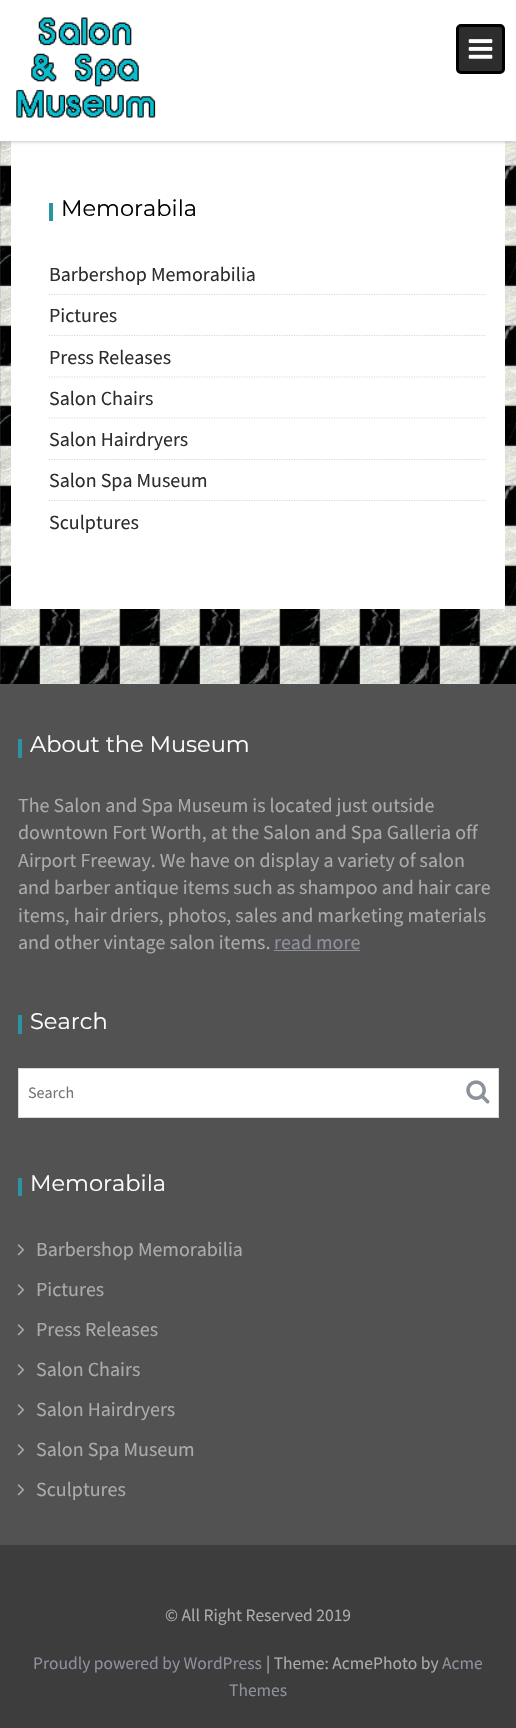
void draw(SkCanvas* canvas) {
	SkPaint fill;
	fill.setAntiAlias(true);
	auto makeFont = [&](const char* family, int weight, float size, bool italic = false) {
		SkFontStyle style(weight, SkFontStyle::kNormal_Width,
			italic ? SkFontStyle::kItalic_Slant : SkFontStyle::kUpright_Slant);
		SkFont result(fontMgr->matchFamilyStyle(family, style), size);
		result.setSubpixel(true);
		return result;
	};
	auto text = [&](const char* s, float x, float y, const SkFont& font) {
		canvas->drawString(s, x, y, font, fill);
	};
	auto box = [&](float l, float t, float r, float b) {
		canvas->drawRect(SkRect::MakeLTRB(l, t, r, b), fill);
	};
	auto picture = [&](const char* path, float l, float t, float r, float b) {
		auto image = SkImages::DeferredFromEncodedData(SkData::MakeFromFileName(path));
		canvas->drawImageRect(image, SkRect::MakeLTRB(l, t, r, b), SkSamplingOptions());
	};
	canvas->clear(0xFFFFFFFF);
	picture("image0.png", 0, 141, 516, 684);
	fill.setColor(0xFFFFFFFF);
	box(11, 141, 505, 609);
	fill.setColor(0xFFAAAAAA);
	fill.setMaskFilter(SkMaskFilter::MakeBlur(kNormal_SkBlurStyle, 2));
	canvas->drawRect(SkRect::MakeLTRB(0, 0, 516, 141), fill);
	fill.setMaskFilter(nullptr);
	fill.setColor(0xFFFFFFFF);
	box(0, 0, 516, 141);
	picture("image1.png", 16, 17, 156, 118);
	fill.setColor(0xFF2D2D2D);
	canvas->drawRoundRect(SkRect::MakeLTRB(457.5f, 25.5f, 503.5f, 72.5f), 3.5f, 3.5f, fill);
	fill.setStyle(SkPaint::kStroke_Style);
	fill.setStrokeWidth(3);
	fill.setColor(0xFF000000);
	canvas->drawRoundRect(SkRect::MakeLTRB(457.5f, 25.5f, 503.5f, 72.5f), 3.5f, 3.5f, fill);
	picture("image2.png", 468, 39, 493, 59);
	fill.setStyle(SkPaint::kFill_Style);
	fill.setColor(0xFF2C93A3);
	box(49, 203, 53, 221);
	fill.setStyle(SkPaint::kStroke_Style);
	fill.setStrokeWidth(1.2f);
	fill.setColor(0xFFD7D7D7);
	fill.setPathEffect(SkDashPathEffect::Make({{1.25f, 1.25f}}, 0));
	canvas->drawPath(SkPathBuilder().moveTo(49, 294.5f).lineTo(486, 294.5f).detach(), fill);
	fill.setPathEffect(nullptr);
	fill.setPathEffect(SkDashPathEffect::Make({{1.25f, 1.25f}}, 0));
	canvas->drawPath(SkPathBuilder().moveTo(49, 335.5f).lineTo(486, 335.5f).detach(), fill);
	fill.setPathEffect(nullptr);
	fill.setPathEffect(SkDashPathEffect::Make({{1.25f, 1.25f}}, 0));
	canvas->drawPath(SkPathBuilder().moveTo(49, 377).lineTo(486, 377).detach(), fill);
	fill.setPathEffect(nullptr);
	fill.setPathEffect(SkDashPathEffect::Make({{1.25f, 1.25f}}, 0));
	canvas->drawPath(SkPathBuilder().moveTo(49, 418).lineTo(486, 418).detach(), fill);
	fill.setPathEffect(nullptr);
	fill.setPathEffect(SkDashPathEffect::Make({{1.25f, 1.25f}}, 0));
	canvas->drawPath(SkPathBuilder().moveTo(49, 459.5f).lineTo(486, 459.5f).detach(), fill);
	fill.setPathEffect(nullptr);
	fill.setPathEffect(SkDashPathEffect::Make({{1.25f, 1.25f}}, 0));
	canvas->drawPath(SkPathBuilder().moveTo(49, 500.5f).lineTo(486, 500.5f).detach(), fill);
	fill.setPathEffect(nullptr);
	fill.setStyle(SkPaint::kFill_Style);
	fill.setColor(0xFF525252);
	box(0, 684, 516, 1545);
	fill.setColor(0xFF2C93A3);
	box(18, 739, 22, 758);
	fill.setColor(0xFF8C919B);
	box(274, 950, 360, 951);
	fill.setColor(0xFF2C93A3);
	box(18, 1015, 22, 1034);
	fill.setColor(0xFFFFFFFF);
	canvas->drawRect(SkRect::MakeLTRB(18.5f, 1068.5f, 498.5f, 1117.5f), fill);
	fill.setStyle(SkPaint::kStroke_Style);
	fill.setStrokeWidth(1);
	fill.setColor(0xFFDBDBDB);
	canvas->drawRect(SkRect::MakeLTRB(18.5f, 1068.5f, 498.5f, 1117.5f), fill);
	picture("image3.png", 466, 1080, 490, 1104);
	fill.setStyle(SkPaint::kFill_Style);
	fill.setColor(0xFF2C93A3);
	box(18, 1178, 22, 1196);
	picture("image4.png", 17, 1244, 24, 1256);
	picture("image4.png", 17, 1284, 24, 1296);
	picture("image4.png", 17, 1324, 24, 1336);
	picture("image4.png", 17, 1364, 24, 1376);
	picture("image4.png", 17, 1404, 24, 1416);
	picture("image4.png", 17, 1444, 24, 1456);
	picture("image4.png", 17, 1484, 24, 1496);
	fill.setColor(0xFF3D3D3D);
	box(0, 1545, 516, 1728);
	auto font1 = makeFont("Montserrat", 400, 22.5f);
	fill.setColor(0xFF000000);
	text("Memorabila", 61, 216, font1);
	auto font2 = makeFont("Source Sans Pro", 400, 20);
	fill.setColor(0xFF2D2D2D);
	text("Barbershop Memorabilia", 49, 281, font2);
	text("Pictures", 49, 322, font2);
	text("Press Releases", 49, 364, font2);
	text("Salon Chairs", 49, 405, font2);
	text("Salon Hairdryers", 49, 446, font2);
	text("Salon Spa Museum", 49, 487, font2);
	text("Sculptures", 49, 529, font2);
	fill.setColor(0xFFFFFFFF);
	text("About the Museum", 30, 752, font1);
	fill.setColor(0xFFABABAB);
	text("The Salon and Spa Museum is located just outside", 18, 812, font2);
	text("downtown Fort Worth, at the Salon and Spa Galleria off", 18, 839, font2);
	text("Airport Freeway. We have on display a variety of salon", 18, 867, font2);
	text("and barber antique items such as shampoo and hair care", 18, 894, font2);
	text("items, hair driers, photos, sales and marketing materials", 18, 922, font2);
	text("and other vintage salon items.", 18, 949, font2);
	fill.setColor(0xFF8C919B);
	text("read more", 274, 949, font2);
	fill.setColor(0xFFFFFFFF);
	text("Search", 30, 1029, font1);
	auto font3 = makeFont("Source Sans Pro", 400, 16);
	fill.setColor(0xFF757575);
	text("Search", 28, 1098, font3);
	fill.setColor(0xFFFFFFFF);
	text("Memorabila", 30, 1191, font1);
	fill.setColor(0xFFABABAB);
	text("Barbershop Memorabilia", 36, 1256, font2);
	text("Pictures", 36, 1296, font2);
	text("Press Releases", 36, 1336, font2);
	text("Salon Chairs", 36, 1376, font2);
	text("Salon Hairdryers", 36, 1416, font2);
	text("Salon Spa Museum", 36, 1456, font2);
	text("Sculptures", 36, 1496, font2);
	auto font4 = makeFont("Source Sans Pro", 400, 17.5f);
	text("© All Right Reserved 2019", 165, 1621, font4);
	fill.setColor(0xFF8C919B);
	text("Proudly powered by WordPress", 33, 1669, font4);
	fill.setColor(0xFFABABAB);
	text("| Theme: AcmePhoto by", 266, 1669, font4);
	fill.setColor(0xFF8C919B);
	text("Acme", 442, 1669, font4);
	text("Themes", 229, 1696, font4);
}
